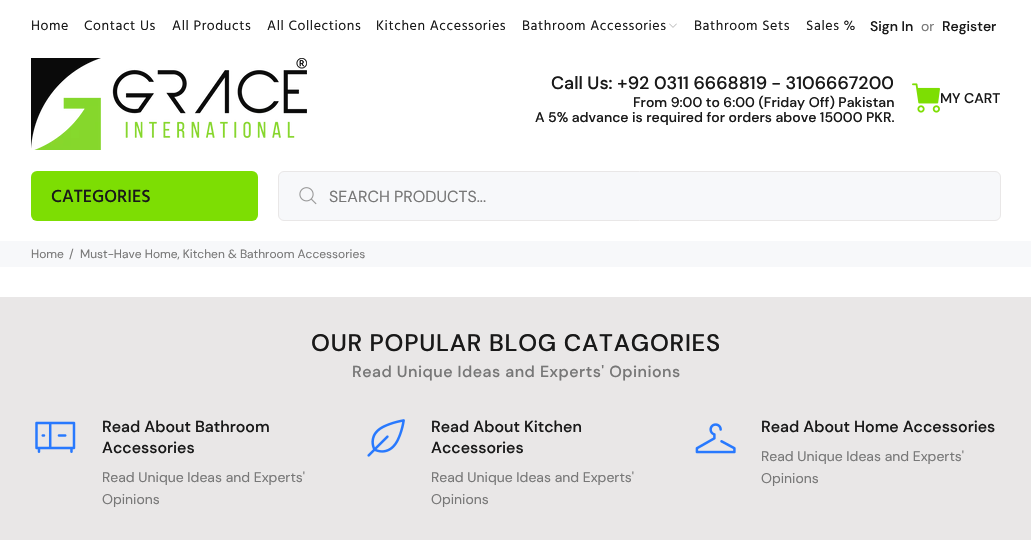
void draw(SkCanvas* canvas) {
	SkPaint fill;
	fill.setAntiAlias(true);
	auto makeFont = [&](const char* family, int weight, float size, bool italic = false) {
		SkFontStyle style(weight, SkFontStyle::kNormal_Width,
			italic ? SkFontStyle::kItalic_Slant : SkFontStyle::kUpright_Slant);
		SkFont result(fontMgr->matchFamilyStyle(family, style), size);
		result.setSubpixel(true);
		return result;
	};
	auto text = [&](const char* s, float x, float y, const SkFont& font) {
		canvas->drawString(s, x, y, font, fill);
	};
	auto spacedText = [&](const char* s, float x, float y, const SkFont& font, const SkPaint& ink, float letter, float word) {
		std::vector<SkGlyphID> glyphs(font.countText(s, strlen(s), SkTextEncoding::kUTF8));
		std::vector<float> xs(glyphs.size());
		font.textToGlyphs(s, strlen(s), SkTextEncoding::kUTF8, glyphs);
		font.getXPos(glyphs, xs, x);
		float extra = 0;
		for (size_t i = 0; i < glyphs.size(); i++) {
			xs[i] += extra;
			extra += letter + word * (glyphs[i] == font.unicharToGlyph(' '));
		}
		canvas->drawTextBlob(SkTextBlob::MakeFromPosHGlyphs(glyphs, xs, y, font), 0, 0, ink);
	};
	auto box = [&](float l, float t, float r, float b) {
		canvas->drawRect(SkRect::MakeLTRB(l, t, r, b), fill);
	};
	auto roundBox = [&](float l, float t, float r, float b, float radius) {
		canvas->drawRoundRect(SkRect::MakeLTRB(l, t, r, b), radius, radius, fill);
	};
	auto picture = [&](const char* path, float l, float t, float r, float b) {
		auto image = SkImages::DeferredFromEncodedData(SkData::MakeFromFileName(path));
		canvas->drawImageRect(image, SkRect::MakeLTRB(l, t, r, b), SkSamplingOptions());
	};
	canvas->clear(0xFFFFFFFF);
	picture("image0.png", 669, 23, 677, 28);
	picture("image1.png", 31, 58, 307, 150);
	picture("image2.png", 912, 83, 940, 113);
	fill.setColor(0xFF7DDE03);
	roundBox(31, 171, 258, 221, 6);
	fill.setColor(0xFFF7F8FA);
	canvas->drawRoundRect(SkRect::MakeLTRB(278.5f, 171.5f, 1000.5f, 220.5f), 5.5f, 5.5f, fill);
	fill.setStyle(SkPaint::kStroke_Style);
	fill.setStrokeWidth(1);
	fill.setColor(0xFFE9E7E7);
	canvas->drawRoundRect(SkRect::MakeLTRB(278.5f, 171.5f, 1000.5f, 220.5f), 5.5f, 5.5f, fill);
	picture("image3.png", 299, 187, 317, 205);
	fill.setStyle(SkPaint::kFill_Style);
	fill.setColor(0xFFF7F8FA);
	box(0, 241, 1031, 267);
	fill.setColor(0xFFE9E7E7);
	box(0, 297, 1031, 540);
	picture("image4.png", 35, 421, 76, 453);
	picture("image5.png", 367, 419, 405, 457);
	picture("image6.png", 695, 423, 736, 454);
	auto font1 = makeFont("Hind", 400, 14);
	fill.setColor(0xFF191919);
	spacedText("Home", 31, 30, font1, fill, 0.6f, 0);
	spacedText("Contact Us", 84, 30, font1, fill, 0.6f, 0);
	spacedText("All Products", 172, 30, font1, fill, 0.6f, 0);
	spacedText("All Collections", 267, 30, font1, fill, 0.6f, 0);
	spacedText("Kitchen Accessories", 376, 30, font1, fill, 0.6f, 0);
	spacedText("Bathroom Accessories", 522, 30, font1, fill, 0.6f, 0);
	spacedText("Bathroom Sets", 694, 30, font1, fill, 0.6f, 0);
	spacedText("Sales %", 806, 30, font1, fill, 0.6f, 0);
	auto font2 = makeFont("DM Sans", 500, 14);
	text("Sign In", 870, 31, font2);
	auto font3 = makeFont("DM Sans", 400, 14);
	fill.setColor(0xFF777777);
	text("or", 921, 31, font3);
	fill.setColor(0xFF191919);
	text("Register", 942, 31, font2);
	auto font4 = makeFont("DM Sans", 500, 18);
	text("Call Us: +92 0311 6668819 - 3106667200", 551, 89, font4);
	text("From 9:00 to 6:00 (Friday Off) Pakistan", 633, 107, font2);
	text("A 5% advance is required for orders above 15000 PKR.", 535, 122, font2);
	text("MY CART", 940, 103, font2);
	auto font5 = makeFont("Hind", 500, 18);
	text("CATEGORIES", 51, 202, font5);
	auto font6 = makeFont("DM Sans", 400, 16);
	fill.setColor(0xFF777777);
	text("SEARCH PRODUCTS...", 329, 202, font6);
	auto font7 = makeFont("DM Sans", 400, 12);
	text("Home", 31, 258, font7);
	text("/", 69, 258, font7);
	text("Must-Have Home, Kitchen & Bathroom Accessories", 80, 258, font7);
	auto font8 = makeFont("DM Sans", 500, 24);
	fill.setColor(0xFF191919);
	spacedText("OUR POPULAR BLOG CATAGORIES", 311, 351, font8, fill, 0.75f, 0);
	auto font9 = makeFont("DM Sans", 500, 16);
	fill.setColor(0xFF777777);
	spacedText("Read Unique Ideas and Experts' Opinions", 352, 377, font9, fill, 0.5f, 0);
	fill.setColor(0xFF191919);
	text("Read About Bathroom", 102, 432, font9);
	text("Accessories", 102, 453, font9);
	fill.setColor(0xFF777777);
	text("Read Unique Ideas and Experts'", 102, 482, font3);
	text("Opinions", 102, 504, font3);
	fill.setColor(0xFF191919);
	text("Read About Kitchen", 431, 432, font9);
	text("Accessories", 431, 453, font9);
	fill.setColor(0xFF777777);
	text("Read Unique Ideas and Experts'", 431, 482, font3);
	text("Opinions", 431, 504, font3);
	fill.setColor(0xFF191919);
	text("Read About Home Accessories", 761, 432, font9);
	fill.setColor(0xFF777777);
	text("Read Unique Ideas and Experts'", 761, 461, font3);
	text("Opinions", 761, 483, font3);
}
